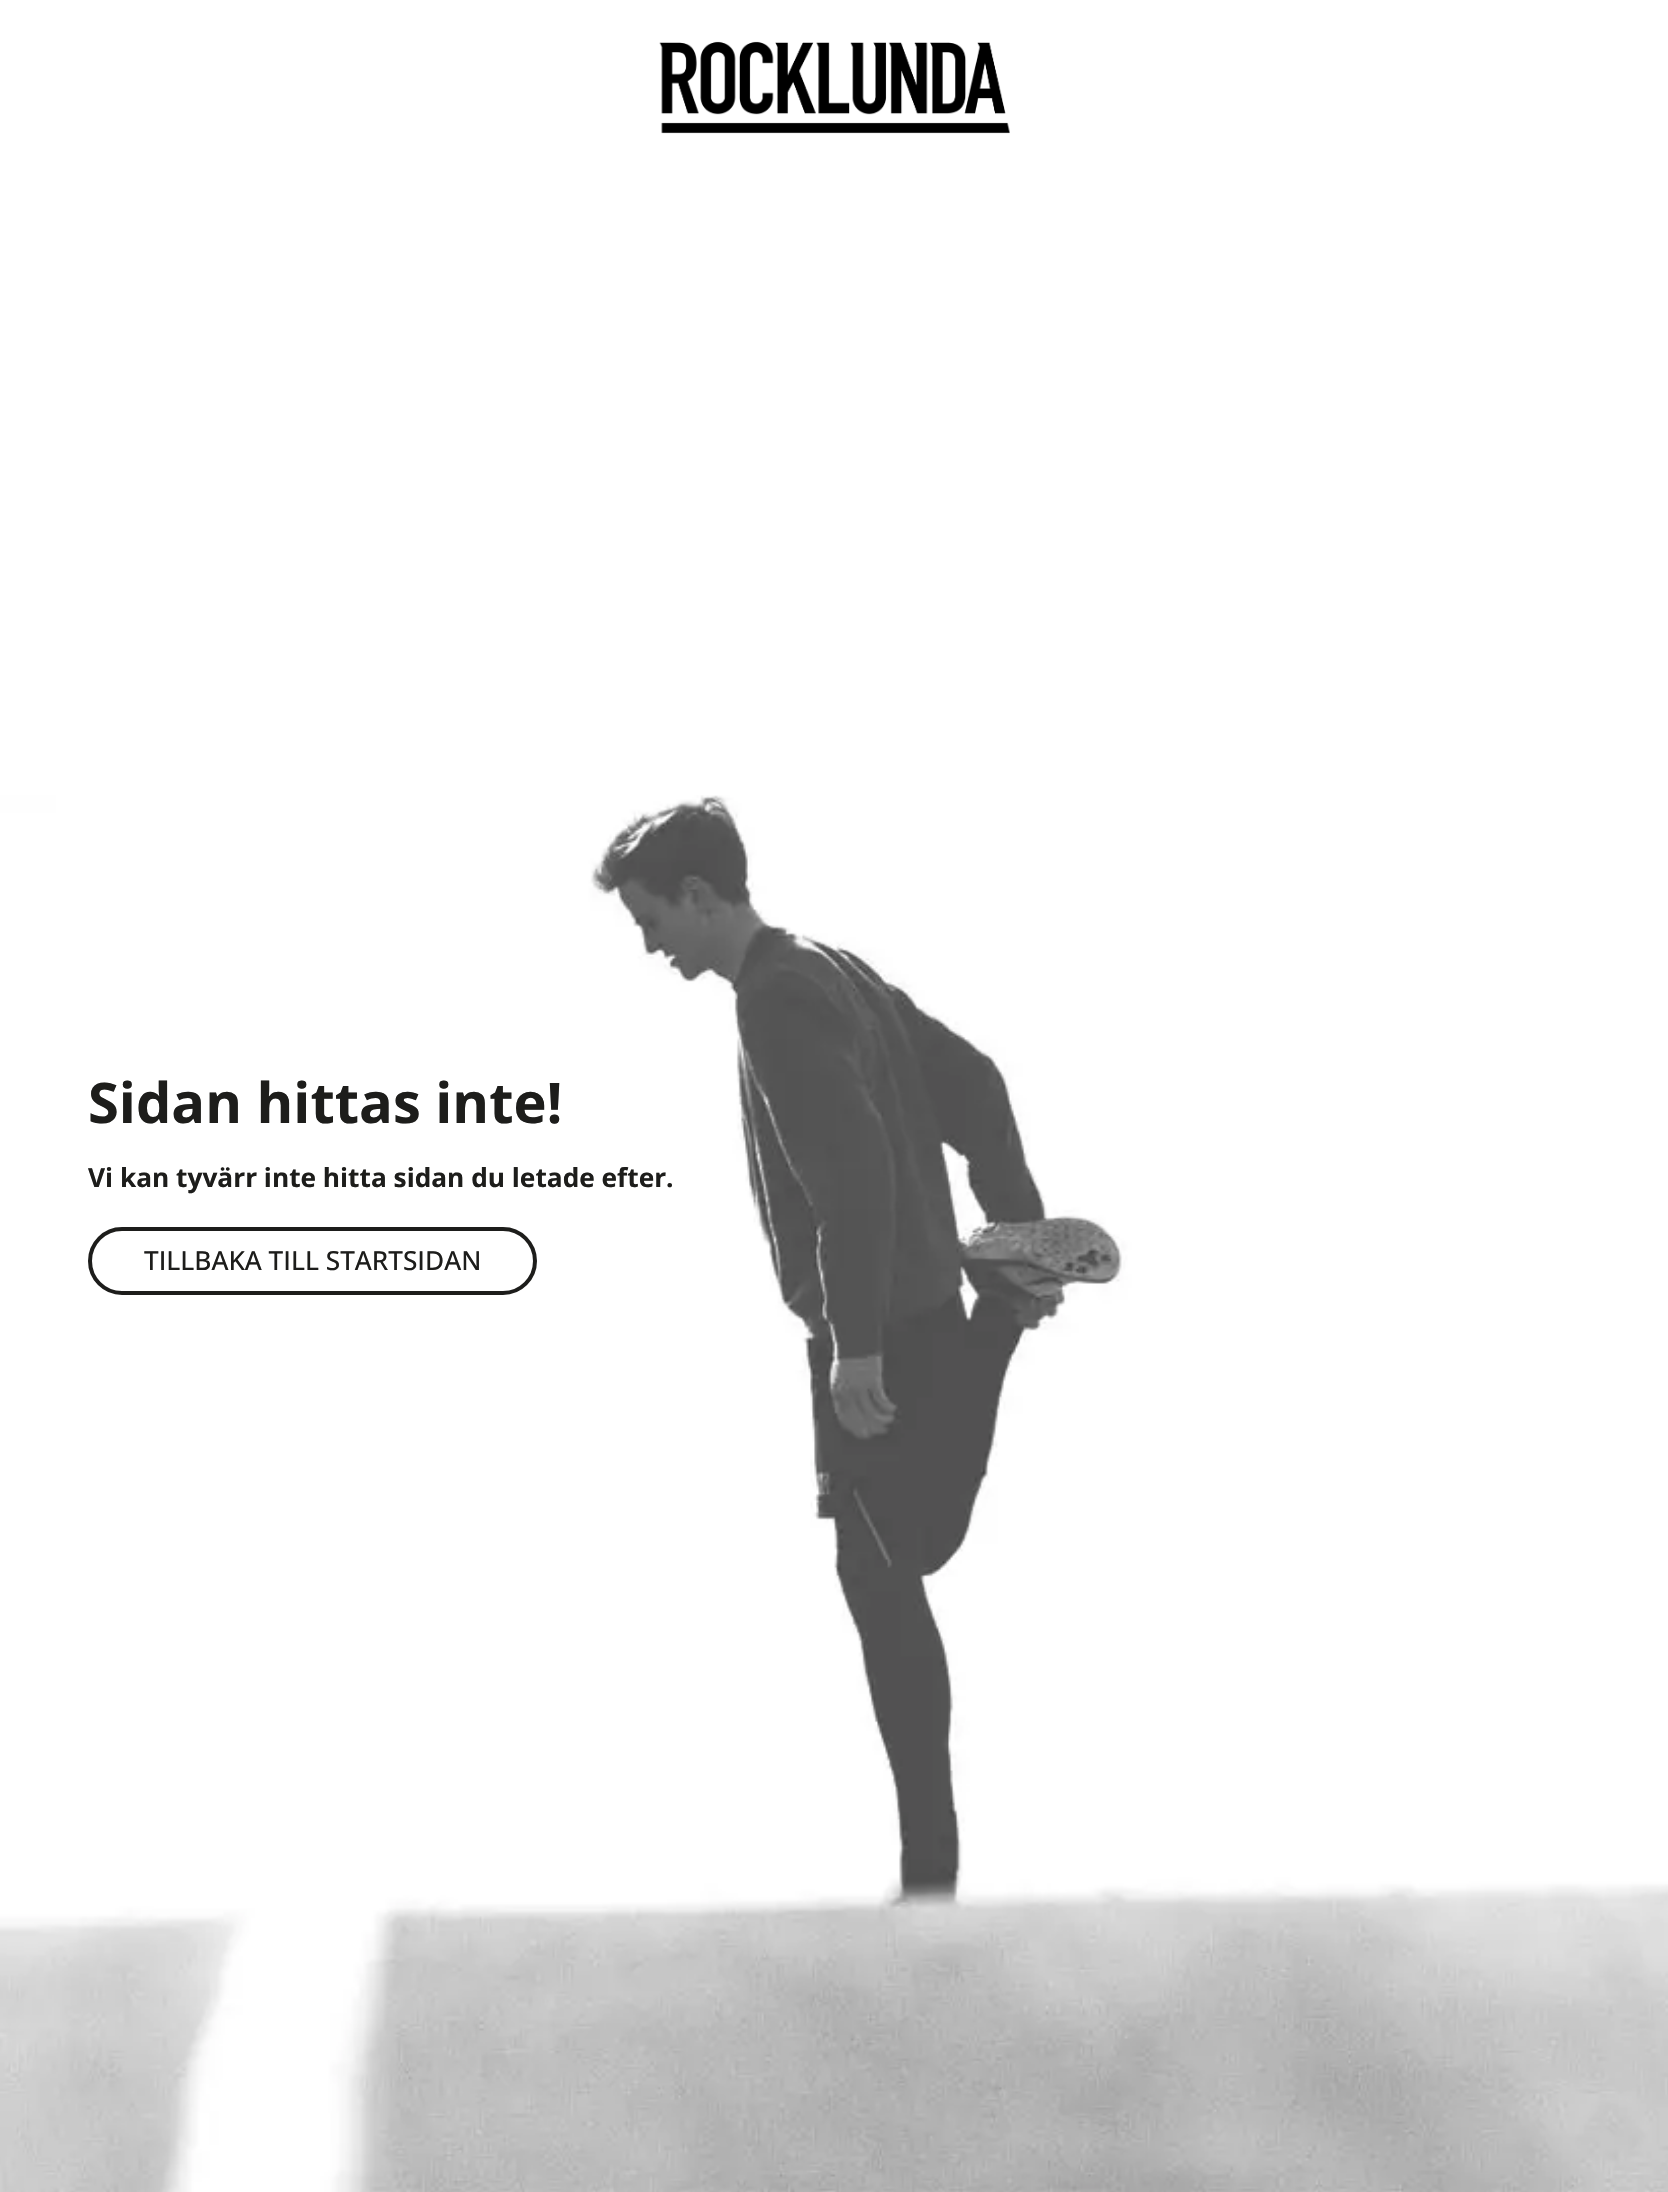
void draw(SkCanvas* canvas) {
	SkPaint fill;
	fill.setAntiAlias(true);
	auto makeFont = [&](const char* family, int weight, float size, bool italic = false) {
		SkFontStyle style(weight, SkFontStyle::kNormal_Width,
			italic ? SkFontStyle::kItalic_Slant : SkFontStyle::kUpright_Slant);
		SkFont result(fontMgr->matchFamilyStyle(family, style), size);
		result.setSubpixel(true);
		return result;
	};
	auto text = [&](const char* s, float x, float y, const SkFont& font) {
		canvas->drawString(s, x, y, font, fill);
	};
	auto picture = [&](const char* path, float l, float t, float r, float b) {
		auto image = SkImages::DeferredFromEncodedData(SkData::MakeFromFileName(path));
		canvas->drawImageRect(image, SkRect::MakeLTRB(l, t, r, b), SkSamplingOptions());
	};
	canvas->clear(0xFFFFFFFF);
	picture("image0.png", 659, 41, 1010, 134);
	picture("image1.png", 0, 795, 1668, 2192);
	fill.setStyle(SkPaint::kStroke_Style);
	fill.setStrokeWidth(4);
	fill.setColor(0xFF1D1D1B);
	canvas->drawRoundRect(SkRect::MakeLTRB(90, 1229, 535, 1293), 32, 32, fill);
	auto font1 = makeFont("Open Sans", 700, 56);
	fill.setStyle(SkPaint::kFill_Style);
	text("Sidan hittas inte!", 88, 1123, font1);
	auto font2 = makeFont("Open Sans", 700, 26.25f);
	text("Vi kan tyvärr inte hitta sidan du letade efter.", 88, 1187, font2);
	auto font3 = makeFont("Open Sans", 500, 26.25f);
	text("TILLBAKA TILL STARTSIDAN", 144, 1270, font3);
}
